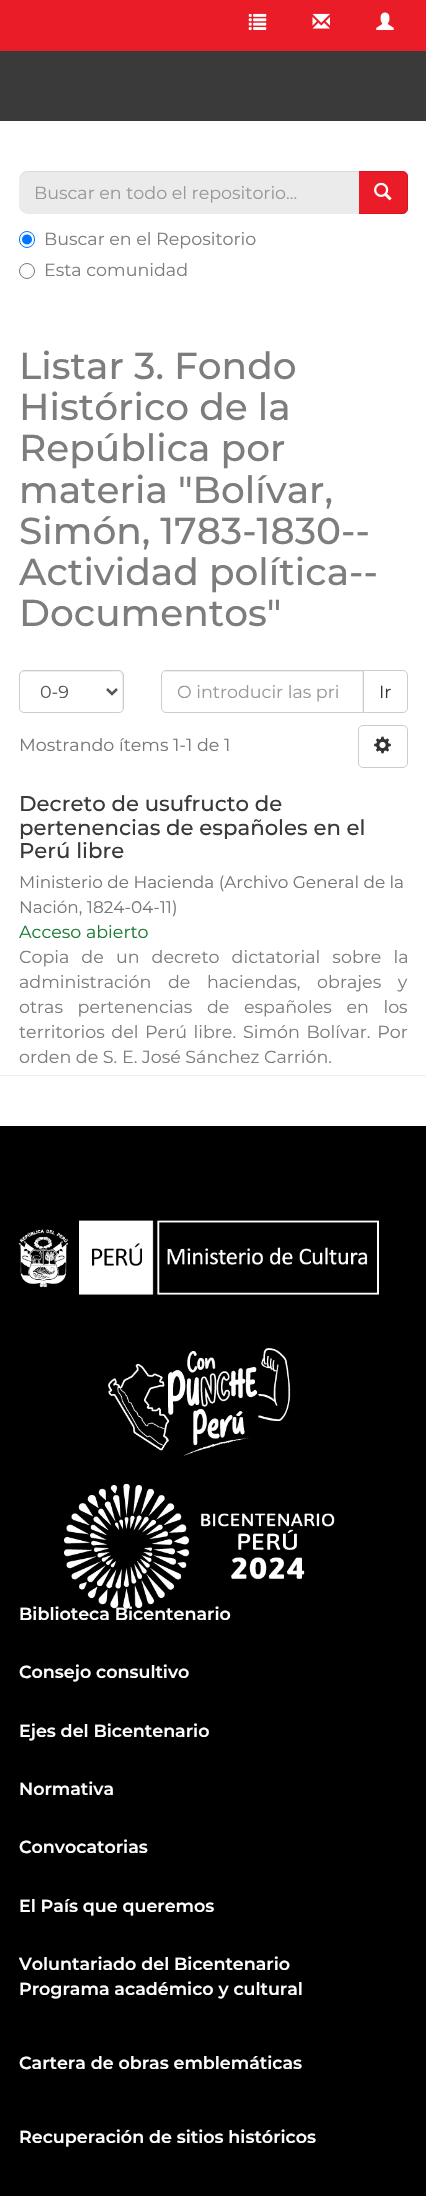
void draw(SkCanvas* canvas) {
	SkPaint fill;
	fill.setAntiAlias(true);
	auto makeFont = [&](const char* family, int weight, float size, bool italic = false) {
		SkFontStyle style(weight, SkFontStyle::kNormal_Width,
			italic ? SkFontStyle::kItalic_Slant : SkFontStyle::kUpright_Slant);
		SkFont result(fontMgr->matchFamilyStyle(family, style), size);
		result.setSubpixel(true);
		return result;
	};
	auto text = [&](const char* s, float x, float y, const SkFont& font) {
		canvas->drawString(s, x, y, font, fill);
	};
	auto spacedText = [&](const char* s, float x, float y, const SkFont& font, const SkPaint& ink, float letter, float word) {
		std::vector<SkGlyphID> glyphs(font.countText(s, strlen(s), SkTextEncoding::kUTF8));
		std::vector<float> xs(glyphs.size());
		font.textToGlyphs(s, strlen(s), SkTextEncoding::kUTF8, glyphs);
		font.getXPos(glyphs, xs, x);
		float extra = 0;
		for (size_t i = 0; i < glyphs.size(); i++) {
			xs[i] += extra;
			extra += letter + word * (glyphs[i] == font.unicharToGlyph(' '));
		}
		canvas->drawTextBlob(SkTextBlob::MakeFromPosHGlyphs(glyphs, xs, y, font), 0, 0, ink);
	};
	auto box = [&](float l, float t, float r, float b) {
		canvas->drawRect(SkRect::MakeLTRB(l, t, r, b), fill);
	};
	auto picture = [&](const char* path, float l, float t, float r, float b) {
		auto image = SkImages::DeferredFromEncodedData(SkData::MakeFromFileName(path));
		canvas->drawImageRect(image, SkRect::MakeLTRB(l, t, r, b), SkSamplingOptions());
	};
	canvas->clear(0xFFFFFFFF);
	fill.setColor(0xFFE91C28);
	box(0, 0, 426, 51);
	picture("image0.png", 248, 13, 267, 30);
	picture("image1.png", 312, 13, 330, 29);
	picture("image2.png", 376, 12, 394, 30);
	fill.setColor(0xFF3A3A3A);
	box(0, 51, 426, 121);
	fill.setColor(0xFFE91C28);
	canvas->drawPath(SkPathBuilder().moveTo(358.5f, 171.5f).lineTo(403, 171.5f).cubicTo(405.5f, 171.5f, 407.5f, 173.5f, 407.5f, 176).lineTo(407.5f, 209).cubicTo(407.5f, 211.5f, 405.5f, 213.5f, 403, 213.5f).lineTo(358.5f, 213.5f).close().detach(), fill);
	fill.setStyle(SkPaint::kStroke_Style);
	fill.setStrokeWidth(1);
	fill.setColor(0xFFD71520);
	canvas->drawPath(SkPathBuilder().moveTo(358.5f, 171.5f).lineTo(403, 171.5f).cubicTo(405.5f, 171.5f, 407.5f, 173.5f, 407.5f, 176).lineTo(407.5f, 209).cubicTo(407.5f, 211.5f, 405.5f, 213.5f, 403, 213.5f).lineTo(358.5f, 213.5f).close().detach(), fill);
	fill.setStyle(SkPaint::kFill_Style);
	fill.setColor(0xFFEBEBEB);
	canvas->drawPath(SkPathBuilder().moveTo(28, 171).lineTo(359, 171).lineTo(359, 214).lineTo(28, 214).cubicTo(23, 214, 19, 210, 19, 205).lineTo(19, 180).cubicTo(19, 175, 23, 171, 28, 171).close().detach(), fill);
	fill.setColor(0x12000000);
	canvas->drawPath(SkPathBuilder().moveTo(28, 172).lineTo(359, 172).lineTo(359, 171).lineTo(28, 171).cubicTo(22, 171, 19, 176, 19, 181).cubicTo(19, 176, 23, 172, 28, 172).close().detach(), fill);
	picture("image3.png", 374, 182, 392, 201);
	fill.setStyle(SkPaint::kStroke_Style);
	fill.setColor(0xFF0075FF);
	canvas->drawRoundRect(SkRect::MakeLTRB(19.5f, 231.5f, 34.5f, 247.5f), 7.5f, 7.5f, fill);
	fill.setStyle(SkPaint::kFill_Style);
	canvas->drawCircle(27, 239.5f, 5, fill);
	fill.setStyle(SkPaint::kStroke_Style);
	fill.setColor(0xFF767676);
	canvas->drawCircle(27, 271, 7.5f, fill);
	fill.setStyle(SkPaint::kFill_Style);
	fill.setColor(0xFFECECEC);
	canvas->drawPath(SkPathBuilder().moveTo(24, 672).lineTo(103, 672).cubicTo(120, 672, 122, 668, 122, 682).lineTo(122, 710).cubicTo(123, 709, 123, 708, 123, 707).lineTo(123, 675).cubicTo(123, 673, 121, 671, 119, 671).lineTo(24, 671).cubicTo(22, 671, 20, 673, 20, 675).lineTo(20, 676).cubicTo(20, 674, 22, 672, 24, 672).close().detach(), fill);
	fill.setStyle(SkPaint::kStroke_Style);
	fill.setColor(0xFFCCCCCC);
	canvas->drawRoundRect(SkRect::MakeLTRB(19.5f, 670.5f, 123.5f, 712.5f), 4.5f, 4.5f, fill);
	fill.setStrokeWidth(2.5f);
	fill.setColor(0xFF555555);
	canvas->drawPath(SkPathBuilder().moveTo(107, 689).lineTo(112, 694).lineTo(117, 689).detach(), fill);
	fill.setStrokeWidth(1);
	fill.setColor(0xFFCCCCCC);
	canvas->drawPath(SkPathBuilder().moveTo(363.5f, 670.5f).lineTo(403, 670.5f).cubicTo(405.5f, 670.5f, 407.5f, 672.5f, 407.5f, 675).lineTo(407.5f, 708).cubicTo(407.5f, 710.5f, 405.5f, 712.5f, 403, 712.5f).lineTo(363.5f, 712.5f).close().detach(), fill);
	fill.setStyle(SkPaint::kFill_Style);
	fill.setColor(0xFFFFFFFF);
	canvas->drawPath(SkPathBuilder().moveTo(166, 670).lineTo(364, 670).lineTo(364, 713).lineTo(166, 713).cubicTo(163, 713, 161, 711, 161, 708).lineTo(161, 675).cubicTo(161, 672, 163, 670, 166, 670).close().detach(), fill);
	fill.setColor(0xFFECECEC);
	canvas->drawPath(SkPathBuilder().moveTo(166, 672).lineTo(362, 672).lineTo(362, 711).lineTo(363, 711).lineTo(363, 671).lineTo(167, 671).cubicTo(166, 671, 164, 672, 164, 673).close().detach(), fill);
	fill.setStyle(SkPaint::kStroke_Style);
	fill.setColor(0xFFCCCCCC);
	canvas->drawPath(SkPathBuilder().moveTo(166, 670.5f).lineTo(363.5f, 670.5f).lineTo(363.5f, 712.5f).lineTo(166, 712.5f).cubicTo(163.5f, 712.5f, 161.5f, 710.5f, 161.5f, 708).lineTo(161.5f, 675).cubicTo(161.5f, 672.5f, 163.5f, 670.5f, 166, 670.5f).close().detach(), fill);
	canvas->drawRoundRect(SkRect::MakeLTRB(358.5f, 725.5f, 407.5f, 767.5f), 4.5f, 4.5f, fill);
	picture("image4.png", 374, 736, 391, 754);
	fill.setStyle(SkPaint::kFill_Style);
	fill.setColor(0xFFEEEEEE);
	box(0, 1075, 426, 1076);
	fill.setColor(0xFF000000);
	box(0, 1126, 426, 2196);
	picture("image5.png", 18, 1220, 379, 1609);
	auto font1 = makeFont("Montserrat", 400, 17.5f);
	fill.setColor(0xFF999999);
	text("Buscar en todo el repositorio...", 34, 199, font1);
	fill.setColor(0xFF7D7D7D);
	text("Buscar en el Repositorio", 44, 245, font1);
	text("Esta comunidad", 44, 276, font1);
	auto font2 = makeFont("Montserrat", 500, 37.5f);
	text("Listar 3. Fondo", 19, 379, font2);
	text("Histórico de la", 19, 420, font2);
	text("República por", 19, 461, font2);
	text("materia \"Bolívar,", 19, 503, font2);
	text("Simón, 1783-1830--", 19, 544, font2);
	text("Actividad política--", 19, 585, font2);
	text("Documentos\"", 19, 626, font2);
	fill.setColor(0xFF555555);
	text("0-9", 40, 698, font1);
	fill.setColor(0xFF999999);
	text("O introducir las pri", 177, 698, font1);
	fill.setColor(0xFF333333);
	text("Ir", 379, 698, font1);
	fill.setColor(0xFF777777);
	text("Mostrando ítems 1-1 de 1", 19, 751, font1);
	auto font3 = makeFont("Montserrat", 500, 21.25f);
	fill.setColor(0xFF3A3A3A);
	text("Decreto de usufructo de", 19, 811, font3);
	text("pertenencias de españoles en el", 19, 835, font3);
	text("Perú libre", 19, 858, font3);
	auto font4 = makeFont("Montserrat", 400, 16.9f);
	fill.setColor(0xFF777777);
	text("Ministerio de Hacienda (Archivo General de la", 19, 888, font4);
	text("Nación, 1824-04-11)", 19, 913, font4);
	fill.setColor(0xFF1B7B34);
	text("Acceso abierto", 19, 938, font1);
	fill.setColor(0xFF7D7D7D);
	spacedText("Copia de un decreto dictatorial sobre la", 19, 963, font1, fill, 0, 7.5f);
	spacedText("administración de haciendas, obrajes y", 19, 988, font1, fill, 0, 12);
	spacedText("otras pertenencias de españoles en los", 19, 1013, font1, fill, 0, 10);
	spacedText("territorios del Perú libre.", 19, 1038, font1, fill, 0, 2);
	spacedText("Simón Bolívar. Por", 243, 1038, font1, fill, 0, 2);
	text("orden de S. E. José Sánchez Carrión.", 19, 1063, font1);
	auto font5 = makeFont("Montserrat", 600, 17.5f);
	fill.setColor(0xFFFFFFFF);
	text("Biblioteca Bicentenario", 19, 1620, font5);
	text("Consejo consultivo", 19, 1678, font5);
	text("Ejes del Bicentenario", 19, 1737, font5);
	text("Normativa", 19, 1795, font5);
	text("Convocatorias", 19, 1853, font5);
	text("El País que queremos", 19, 1912, font5);
	text("Voluntariado del Bicentenario", 19, 1970, font5);
	text("Programa académico y cultural", 19, 1995, font5);
	text("Cartera de obras emblemáticas", 19, 2069, font5);
	text("Recuperación de sitios históricos", 19, 2143, font5);
}
